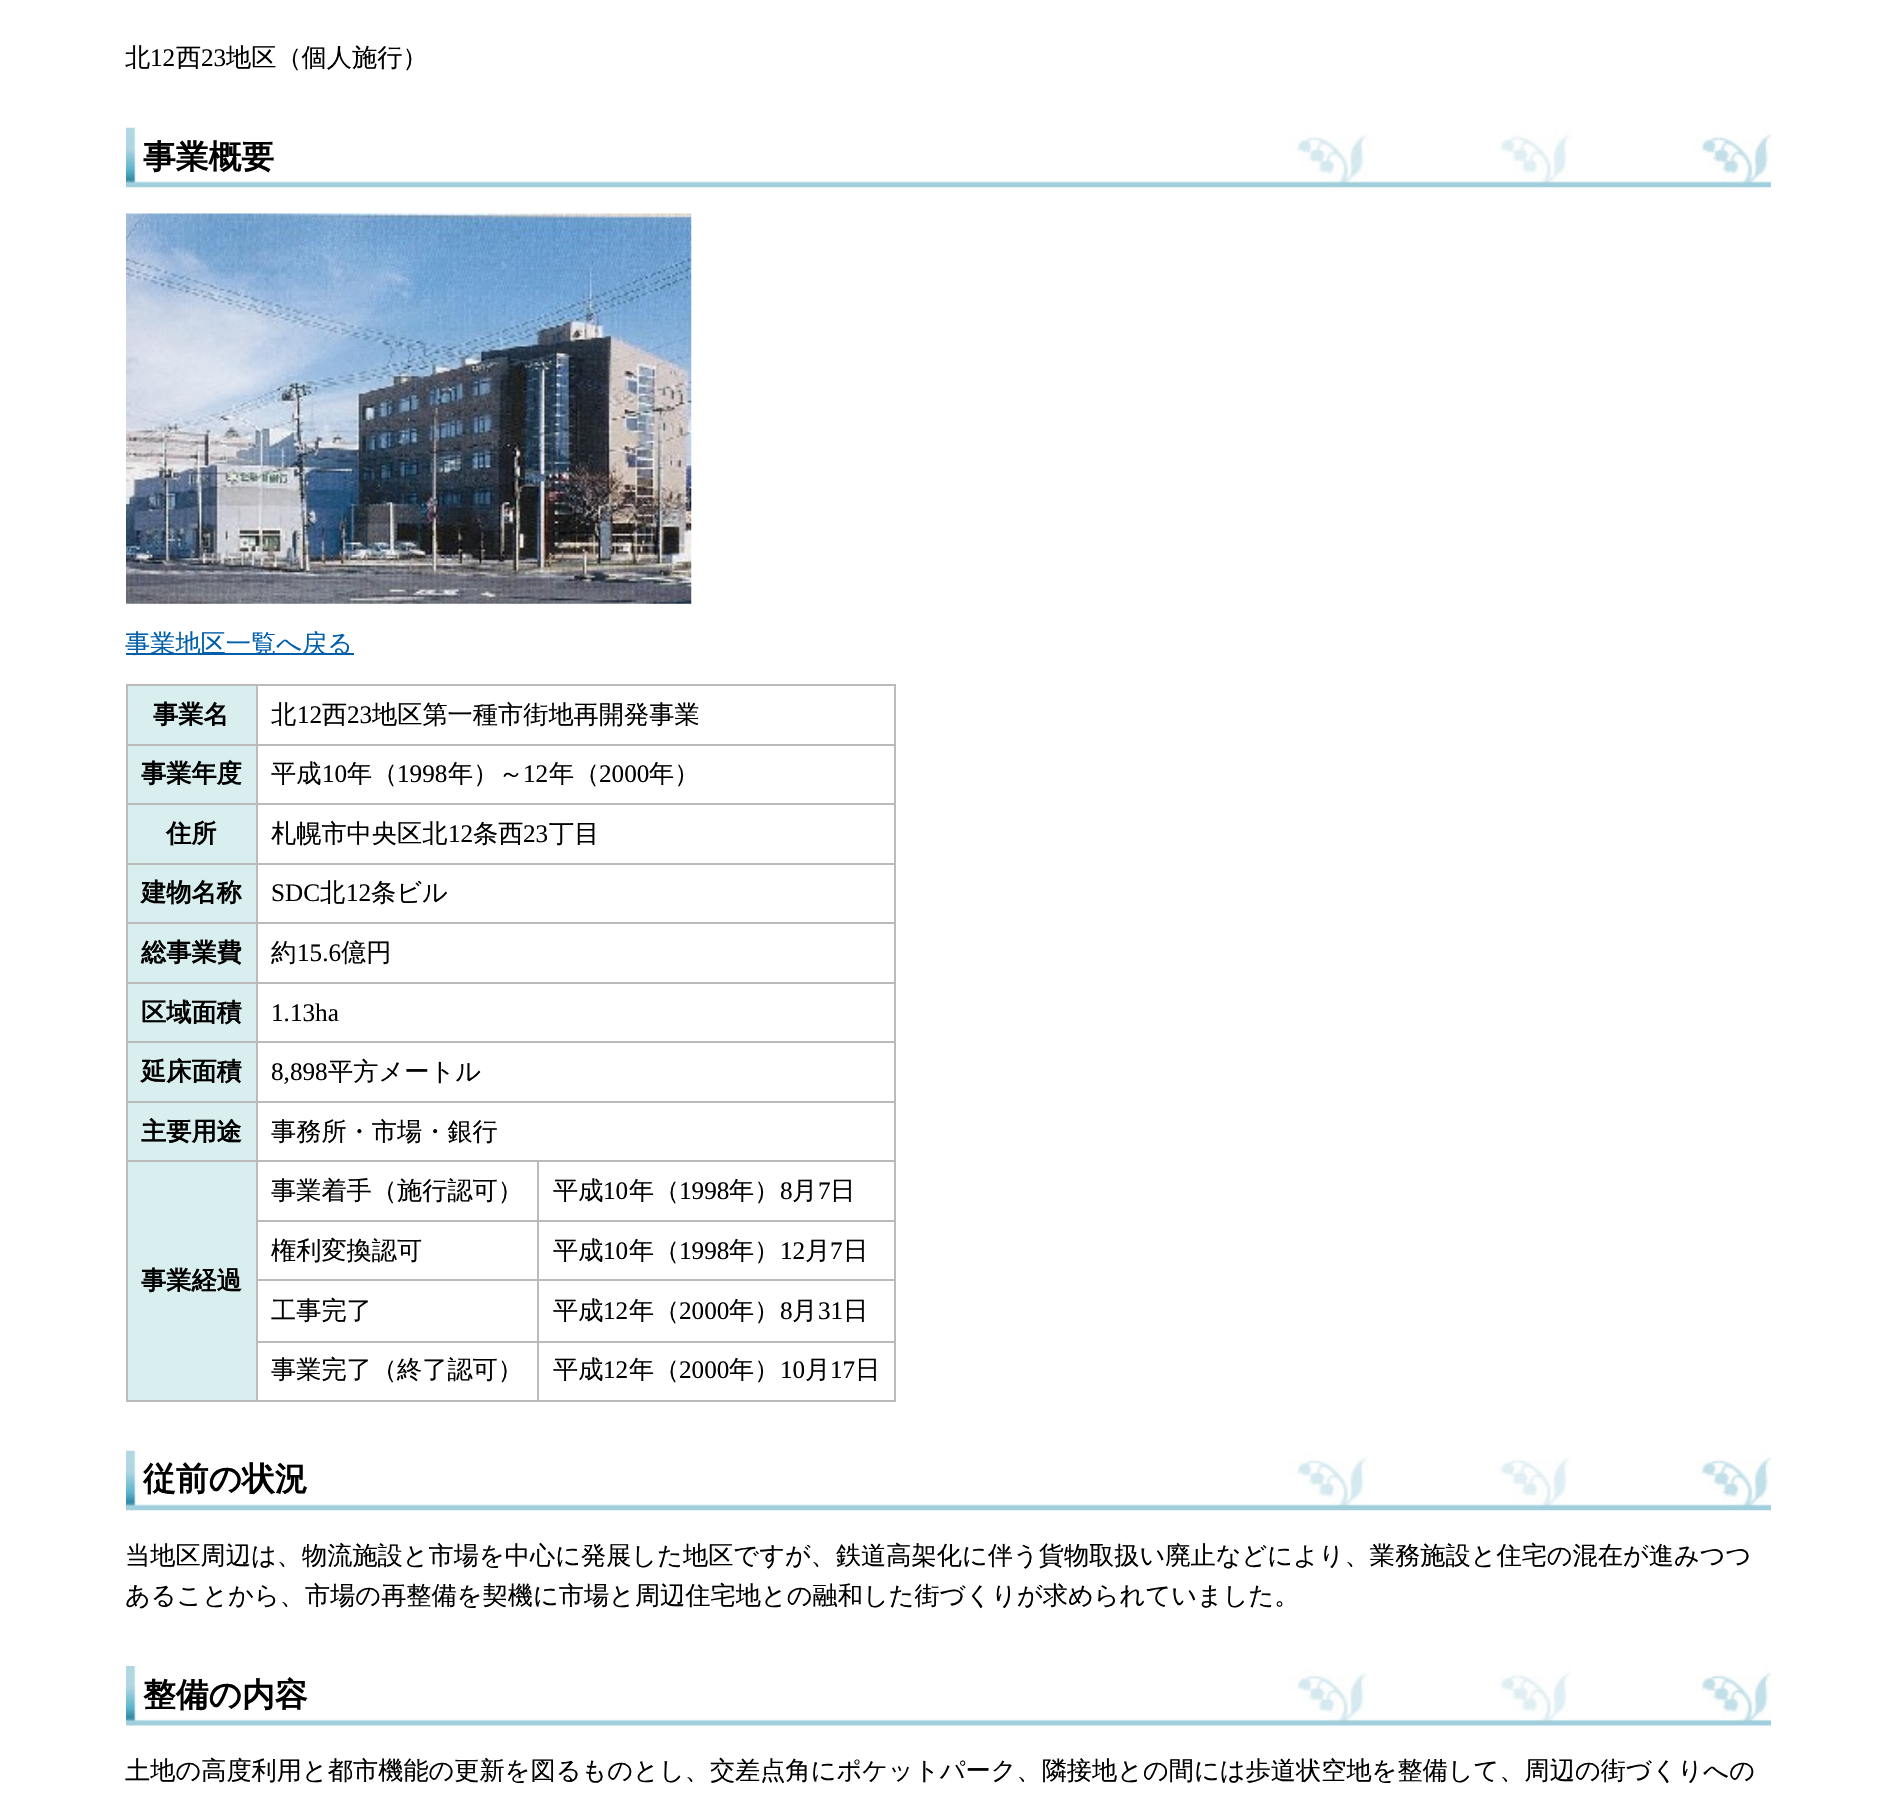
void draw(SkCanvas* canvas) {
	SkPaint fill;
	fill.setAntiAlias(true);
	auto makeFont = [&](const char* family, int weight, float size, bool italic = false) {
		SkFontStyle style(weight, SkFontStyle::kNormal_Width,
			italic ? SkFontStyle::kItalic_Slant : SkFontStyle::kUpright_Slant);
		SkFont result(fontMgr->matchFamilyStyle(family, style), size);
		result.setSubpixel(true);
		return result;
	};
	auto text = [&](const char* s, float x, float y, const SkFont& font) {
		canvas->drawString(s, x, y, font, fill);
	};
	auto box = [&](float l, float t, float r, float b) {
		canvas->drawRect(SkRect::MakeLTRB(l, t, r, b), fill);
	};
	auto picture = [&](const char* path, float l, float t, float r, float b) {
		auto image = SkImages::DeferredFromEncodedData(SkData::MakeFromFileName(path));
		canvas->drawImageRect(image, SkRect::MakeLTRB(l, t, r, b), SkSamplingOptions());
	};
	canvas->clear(0xFFFFFFFF);
	picture("image0.png", 126, 127, 1771, 188);
	picture("image1.png", 126, 213, 692, 604);
	fill.setColor(0xFF005EAA);
	box(126, 653, 354, 655);
	fill.setColor(0xFFBBBBBB);
	box(126, 684, 896, 686);
	box(894, 684, 896, 1402);
	box(126, 1400, 896, 1402);
	box(126, 684, 128, 1402);
	fill.setColor(0xFFD9EEEE);
	box(128, 686, 256, 744);
	fill.setColor(0xFFBBBBBB);
	box(256, 744, 896, 746);
	box(256, 803, 896, 805);
	box(256, 863, 896, 865);
	box(256, 922, 896, 924);
	box(256, 982, 896, 984);
	box(256, 1041, 896, 1043);
	box(256, 1101, 896, 1103);
	box(537, 1160, 896, 1162);
	box(537, 1220, 896, 1222);
	box(537, 1279, 896, 1281);
	box(537, 1341, 896, 1343);
	box(537, 1341, 539, 1402);
	box(256, 1341, 539, 1343);
	box(537, 1279, 539, 1342);
	box(256, 1279, 539, 1281);
	box(537, 1220, 539, 1281);
	box(256, 1220, 539, 1222);
	box(537, 1160, 539, 1222);
	box(256, 1160, 539, 1162);
	box(256, 1341, 258, 1402);
	box(256, 1279, 258, 1342);
	box(256, 1220, 258, 1281);
	box(256, 1160, 258, 1222);
	box(126, 1160, 257, 1162);
	box(256, 1101, 258, 1162);
	box(126, 1101, 257, 1103);
	box(256, 1041, 258, 1103);
	box(126, 1041, 257, 1043);
	box(256, 982, 258, 1043);
	box(126, 982, 257, 984);
	box(256, 922, 258, 984);
	box(126, 922, 257, 924);
	box(256, 863, 258, 924);
	box(126, 863, 257, 865);
	box(256, 803, 258, 865);
	box(126, 803, 257, 805);
	box(256, 744, 258, 805);
	box(126, 744, 257, 746);
	box(256, 684, 258, 746);
	fill.setColor(0xFFD9EEEE);
	box(128, 746, 256, 803);
	box(128, 805, 256, 863);
	box(128, 865, 256, 922);
	box(128, 924, 256, 982);
	box(128, 984, 256, 1041);
	box(128, 1043, 256, 1101);
	box(128, 1103, 256, 1160);
	box(128, 1162, 256, 1400);
	picture("image0.png", 126, 1450, 1771, 1511);
	picture("image2.png", 126, 1666, 1771, 1726);
	auto font1 = makeFont("WenQuanYi Zen Hei", 500, 25.2f);
	fill.setColor(0xFF000000);
	text("北", 125, 66, font1);
	auto font2 = makeFont("Liberation Serif", 400, 25.2f);
	text("12", 150, 66, font2);
	text("西", 176, 66, font1);
	text("23", 201, 66, font2);
	text("地区（個人施行）", 226, 66, font1);
	auto font3 = makeFont("WenQuanYi Zen Hei", 700, 32.75f);
	text("事業概要", 143, 168, font3);
	fill.setColor(0xFF005EAA);
	text("事業地区一覧へ戻る", 125, 652, font1);
	auto font4 = makeFont("WenQuanYi Zen Hei", 700, 25.2f);
	fill.setColor(0xFF000000);
	text("事業名", 153, 723, font4);
	text("北", 271, 723, font1);
	text("12", 297, 723, font2);
	text("西", 322, 723, font1);
	text("23", 347, 723, font2);
	text("地区第一種市街地再開発事業", 372, 723, font1);
	text("事業年度", 141, 782, font4);
	text("平成", 271, 782, font1);
	text("10", 322, 782, font2);
	text("年（", 347, 782, font1);
	text("1998", 397, 782, font2);
	text("年）～", 448, 782, font1);
	text("12", 523, 782, font2);
	text("年（", 549, 782, font1);
	text("2000", 599, 782, font2);
	text("年）", 649, 782, font1);
	text("住所", 166, 842, font4);
	text("札幌市中央区北", 271, 842, font1);
	text("12", 448, 842, font2);
	text("条西", 473, 842, font1);
	text("23", 523, 842, font2);
	text("丁目", 549, 842, font1);
	text("建物名称", 141, 901, font4);
	text("SDC", 271, 901, font2);
	text("北", 320, 901, font1);
	text("12", 346, 901, font2);
	text("条ビル", 371, 901, font1);
	text("総事業費", 141, 961, font4);
	text("約", 271, 961, font1);
	text("15.6", 297, 961, font2);
	text("億円", 341, 961, font1);
	text("区域面積", 141, 1021, font4);
	text("1.13ha", 271, 1021, font2);
	text("延床面積", 141, 1080, font4);
	text("8,898", 271, 1080, font2);
	text("平方メートル", 328, 1080, font1);
	text("主要用途", 141, 1140, font4);
	text("事務所・市場・銀行", 271, 1140, font1);
	text("事業着手（施行認可）", 271, 1199, font1);
	text("平成", 553, 1199, font1);
	text("10", 603, 1199, font2);
	text("年（", 629, 1199, font1);
	text("1998", 679, 1199, font2);
	text("年）", 729, 1199, font1);
	text("8", 780, 1199, font2);
	text("月", 792, 1199, font1);
	text("7", 818, 1199, font2);
	text("日", 830, 1199, font1);
	text("事業経過", 141, 1289, font4);
	text("権利変換認可", 271, 1259, font1);
	text("平成", 553, 1259, font1);
	text("10", 603, 1259, font2);
	text("年（", 629, 1259, font1);
	text("1998", 679, 1259, font2);
	text("年）", 729, 1259, font1);
	text("12", 780, 1259, font2);
	text("月", 805, 1259, font1);
	text("7", 830, 1259, font2);
	text("日", 843, 1259, font1);
	text("工事完了", 271, 1319, font1);
	text("平成", 553, 1319, font1);
	text("12", 603, 1319, font2);
	text("年（", 629, 1319, font1);
	text("2000", 679, 1319, font2);
	text("年）", 729, 1319, font1);
	text("8", 780, 1319, font2);
	text("月", 792, 1319, font1);
	text("31", 818, 1319, font2);
	text("日", 843, 1319, font1);
	text("事業完了（終了認可）", 271, 1378, font1);
	text("平成", 553, 1378, font1);
	text("12", 603, 1378, font2);
	text("年（", 629, 1378, font1);
	text("2000", 679, 1378, font2);
	text("年）", 729, 1378, font1);
	text("10", 780, 1378, font2);
	text("月", 805, 1378, font1);
	text("17", 830, 1378, font2);
	text("日", 855, 1378, font1);
	text("従前の状況", 143, 1490, font3);
	text("当地区周辺は、物流施設と市場を中心に発展した地区ですが、鉄道高架化に伴う貨物取扱い廃止などにより、業務施設と住宅の混在が進みつつ", 125, 1564, font1);
	text("あることから、市場の再整備を契機に市場と周辺住宅地との融和した街づくりが求められていました。", 125, 1604, font1);
	text("整備の内容", 143, 1706, font3);
	text("土地の高度利用と都市機能の更新を図るものとし、交差点角にポケットパーク、隣接地との間には歩道状空地を整備して、周辺の街づくりへの", 125, 1779, font1);
}
